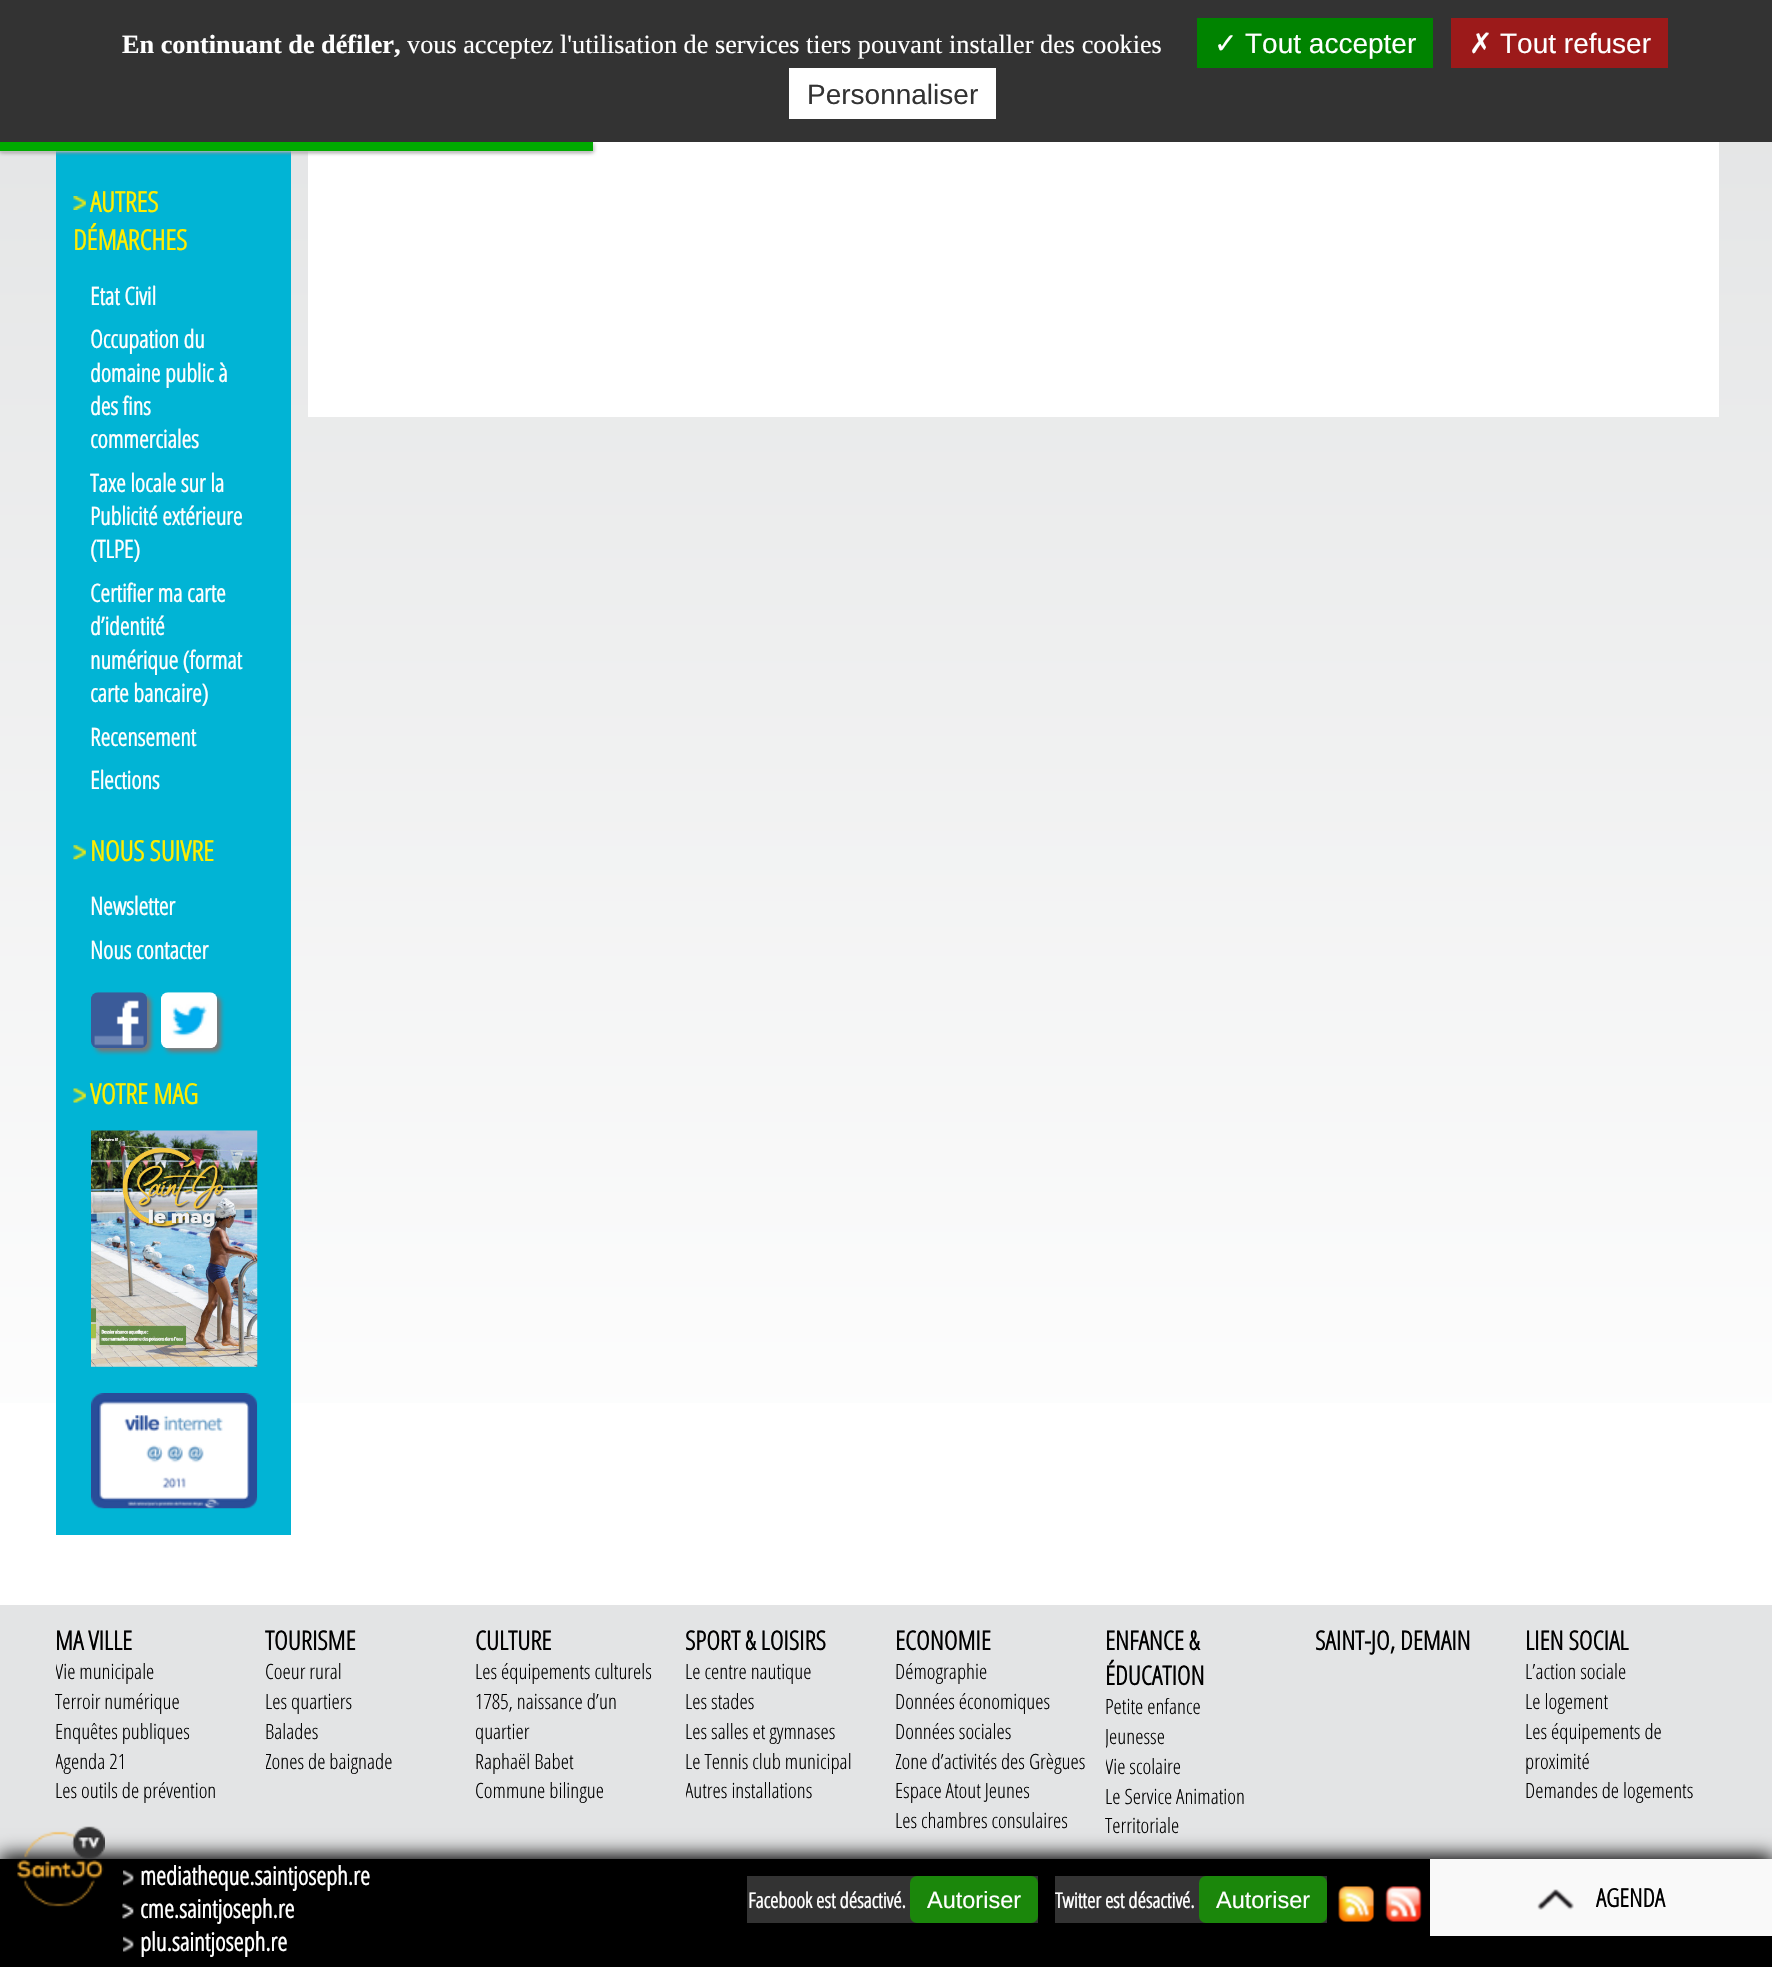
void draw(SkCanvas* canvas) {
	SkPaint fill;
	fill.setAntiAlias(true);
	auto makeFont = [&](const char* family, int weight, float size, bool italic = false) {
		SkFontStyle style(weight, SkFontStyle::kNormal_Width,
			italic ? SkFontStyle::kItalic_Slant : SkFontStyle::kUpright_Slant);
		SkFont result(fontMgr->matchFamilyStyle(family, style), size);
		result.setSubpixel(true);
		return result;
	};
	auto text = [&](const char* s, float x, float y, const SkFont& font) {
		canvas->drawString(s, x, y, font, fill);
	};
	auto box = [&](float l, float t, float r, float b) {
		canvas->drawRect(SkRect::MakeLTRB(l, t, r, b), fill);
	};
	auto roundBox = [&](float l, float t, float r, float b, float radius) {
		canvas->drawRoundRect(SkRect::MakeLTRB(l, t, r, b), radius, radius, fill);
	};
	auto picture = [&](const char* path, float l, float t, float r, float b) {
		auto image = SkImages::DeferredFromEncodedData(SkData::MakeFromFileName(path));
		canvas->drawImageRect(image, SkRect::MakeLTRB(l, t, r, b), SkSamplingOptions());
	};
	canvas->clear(0xFFFFFFFF);
	{
		const SkColor colors[] = {0xFFCFD1D2, 0xFFFFFFFF};
		const float stops[] = {0, 1};
		const SkPoint ends[] = {{886, -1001}, {886, 1535}};
		fill.setShader(SkGradientShader::MakeLinear(ends, colors, stops, 2, SkTileMode::kClamp));
		fill.setAlpha(255);
	}
	box(0, 142, 1772, 1403);
	fill.setShader(nullptr);
	fill.setColor(0xFF01B4D5);
	box(56, 151, 291, 1535);
	fill.setColor(0xFFFFFFFF);
	box(308, 142, 1719, 417);
	fill.setColor(0xFF555555);
	fill.setMaskFilter(SkMaskFilter::MakeBlur(kNormal_SkBlurStyle, 2));
	canvas->drawRect(SkRect::MakeLTRB(0, 144, 593, 152), fill);
	fill.setMaskFilter(nullptr);
	fill.setColor(0xFFFFFFFF);
	fill.setMaskFilter(SkMaskFilter::MakeBlur(kNormal_SkBlurStyle, 2));
	canvas->drawRect(SkRect::MakeLTRB(0, 142, 593, 151), fill);
	fill.setMaskFilter(nullptr);
	fill.setColor(0xFF333333);
	box(0, 0, 1772, 142);
	fill.setColor(0xFF008300);
	box(1197, 18, 1433, 68);
	fill.setColor(0xFF9C1A1A);
	box(1451, 18, 1668, 68);
	fill.setColor(0xFFFFFFFF);
	box(789, 68, 996, 119);
	fill.setColor(0xFF00AA00);
	box(0, 142, 593, 151);
	picture("image0.png", 73, 196, 86, 210);
	picture("image1.png", 73, 845, 86, 860);
	fill.setColor(0xFF797676);
	fill.setMaskFilter(SkMaskFilter::MakeBlur(kNormal_SkBlurStyle, 2));
	canvas->drawRoundRect(SkRect::MakeLTRB(95, 996, 151, 1052), 7, 7, fill);
	fill.setMaskFilter(nullptr);
	fill.setMaskFilter(SkMaskFilter::MakeBlur(kNormal_SkBlurStyle, 2));
	canvas->drawRoundRect(SkRect::MakeLTRB(165, 996, 221, 1052), 7, 7, fill);
	fill.setMaskFilter(nullptr);
	picture("image2.png", 91, 992, 147, 1048);
	picture("image3.png", 161, 992, 217, 1049);
	picture("image4.png", 73, 1088, 86, 1103);
	picture("image5.png", 91, 1130, 258, 1367);
	picture("image6.png", 91, 1393, 258, 1509);
	fill.setColor(0xFFE3E4E5);
	box(0, 1605, 1772, 1859);
	fill.setColor(0xFF000000);
	fill.setMaskFilter(SkMaskFilter::MakeBlur(kNormal_SkBlurStyle, 9));
	canvas->drawRect(SkRect::MakeLTRB(0, 1855, 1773, 1964), fill);
	fill.setMaskFilter(nullptr);
	box(0, 1859, 1772, 1967);
	picture("image7.png", 17, 1826, 105, 1907);
	picture("image8.png", 123, 1870, 134, 1886);
	picture("image9.png", 122, 1903, 134, 1919);
	picture("image10.png", 123, 1936, 134, 1952);
	fill.setColor(0xFF333333);
	box(747, 1876, 1038, 1923);
	fill.setColor(0xFF1B870B);
	roundBox(910, 1876, 1038, 1923, 7);
	fill.setColor(0xFF333333);
	box(1055, 1876, 1327, 1923);
	fill.setColor(0xFF1B870B);
	roundBox(1199, 1876, 1327, 1923, 7);
	picture("image11.png", 1338, 1886, 1375, 1922);
	picture("image12.png", 1385, 1886, 1422, 1922);
	fill.setColor(0xFFF9F9F9);
	box(1430, 1859, 1772, 1936);
	picture("image13.png", 1537, 1889, 1574, 1910);
	auto font1 = makeFont("Liberation Serif", 700, 26.25f);
	fill.setColor(0xFFFFFFFF);
	text("En continuant de défiler,", 122, 53, font1);
	auto font2 = makeFont("Liberation Serif", 400, 26.25f);
	text("vous acceptez l'utilisation de services tiers pouvant installer des cookies", 407, 53, font2);
	auto font3 = makeFont("DejaVu Sans", 400, 28);
	text("✓", 1214, 53, font3);
	auto font4 = makeFont("Liberation Sans", 400, 28);
	text("Tout accepter", 1245, 53, font4);
	text("✗", 1469, 53, font3);
	text("Tout refuser", 1500, 53, font4);
	fill.setColor(0xFF333333);
	text("Personnaliser", 807, 104, font4);
	auto font5 = makeFont("Open Sans Condensed", 700, 28);
	fill.setColor(0xFFFFED00);
	text("AUTRES", 90, 212, font5);
	text("DÉMARCHES", 73, 250, font5);
	auto font6 = makeFont("Open Sans Condensed", 700, 24.5f);
	fill.setColor(0xFFFFFFFF);
	text("Etat Civil", 90, 305, font6);
	text("Occupation du", 90, 348, font6);
	text("domaine public à", 90, 382, font6);
	text("des fins", 90, 415, font6);
	text("commerciales", 90, 448, font6);
	text("Taxe locale sur la", 90, 492, font6);
	text("Publicité extérieure", 90, 525, font6);
	text("(TLPE)", 90, 558, font6);
	text("Certifier ma carte", 90, 602, font6);
	text("d’identité", 90, 635, font6);
	text("numérique (format", 90, 669, font6);
	text("carte bancaire)", 90, 702, font6);
	text("Recensement", 90, 746, font6);
	text("Elections", 90, 789, font6);
	fill.setColor(0xFFFFED00);
	text("NOUS SUIVRE", 90, 861, font5);
	fill.setColor(0xFFFFFFFF);
	text("Newsletter", 90, 915, font6);
	text("Nous contacter", 90, 959, font6);
	fill.setColor(0xFFFFED00);
	text("VOTRE MAG", 90, 1104, font5);
	auto font7 = makeFont("Open Sans Condensed", 700, 26.25f);
	fill.setColor(0xFF000000);
	text("MA VILLE", 55, 1650, font7);
	canvas->save();
	canvas->clipRect(SkRect::MakeLTRB(56, 1657, 249, 1687));
	auto font8 = makeFont("Open Sans Condensed", 300, 21);
	text("Vie municipale", 55, 1679, font8);
	canvas->restore();
	text("Terroir numérique", 55, 1709, font8);
	text("Enquêtes publiques", 55, 1739, font8);
	canvas->save();
	canvas->clipRect(SkRect::MakeLTRB(56, 1747, 249, 1776));
	text("Agenda 21", 55, 1769, font8);
	canvas->restore();
	text("Les outils de prévention", 55, 1798, font8);
	text("TOURISME", 265, 1650, font7);
	text("Coeur rural", 265, 1679, font8);
	text("Les quartiers", 265, 1709, font8);
	text("Balades", 265, 1739, font8);
	canvas->save();
	canvas->clipRect(SkRect::MakeLTRB(266, 1747, 459, 1776));
	text("Zones de baignade", 265, 1769, font8);
	canvas->restore();
	text("CULTURE", 475, 1650, font7);
	text("Les équipements culturels", 475, 1679, font8);
	text("1785, naissance d’un", 475, 1709, font8);
	text("quartier", 475, 1739, font8);
	text("Raphaël Babet", 475, 1769, font8);
	text("Commune bilingue", 475, 1798, font8);
	text("SPORT & LOISIRS", 685, 1650, font7);
	text("Le centre nautique", 685, 1679, font8);
	text("Les stades", 685, 1709, font8);
	text("Les salles et gymnases", 685, 1739, font8);
	text("Le Tennis club municipal", 685, 1769, font8);
	canvas->save();
	canvas->clipRect(SkRect::MakeLTRB(686, 1776, 879, 1806));
	text("Autres installations", 685, 1798, font8);
	canvas->restore();
	text("ECONOMIE", 895, 1650, font7);
	text("Démographie", 895, 1679, font8);
	text("Données économiques", 895, 1709, font8);
	text("Données sociales", 895, 1739, font8);
	canvas->save();
	canvas->clipRect(SkRect::MakeLTRB(896, 1747, 1089, 1776));
	text("Zone d’activités des Grègues", 895, 1769, font8);
	canvas->restore();
	text("Espace Atout Jeunes", 895, 1798, font8);
	text("Les chambres consulaires", 895, 1828, font8);
	text("ENFANCE &", 1105, 1650, font7);
	text("ÉDUCATION", 1105, 1685, font7);
	text("Petite enfance", 1105, 1714, font8);
	canvas->save();
	canvas->clipRect(SkRect::MakeLTRB(1106, 1722, 1299, 1752));
	text("Jeunesse", 1105, 1744, font8);
	canvas->restore();
	canvas->save();
	canvas->clipRect(SkRect::MakeLTRB(1106, 1752, 1299, 1782));
	text("Vie scolaire", 1105, 1774, font8);
	canvas->restore();
	text("Le Service Animation", 1105, 1804, font8);
	text("Territoriale", 1105, 1833, font8);
	text("SAINT-JO, DEMAIN", 1315, 1650, font7);
	text("LIEN SOCIAL", 1525, 1650, font7);
	text("L’action sociale", 1525, 1679, font8);
	text("Le logement", 1525, 1709, font8);
	text("Les équipements de", 1525, 1739, font8);
	text("proximité", 1525, 1769, font8);
	text("Demandes de logements", 1525, 1798, font8);
	auto font9 = makeFont("Open Sans Condensed", 700, 25.25f);
	fill.setColor(0xFFFFFFFF);
	text("mediatheque.saintjoseph.re", 140, 1885, font9);
	text("cme.saintjoseph.re", 140, 1918, font9);
	text("plu.saintjoseph.re", 140, 1951, font9);
	auto font10 = makeFont("Open Sans Condensed", 700, 21);
	text("Facebook est désactivé.", 748, 1908, font10);
	auto font11 = makeFont("Liberation Sans", 400, 23.5f);
	text("Autoriser", 927, 1908, font11);
	text("Twitter est désactivé.", 1055, 1908, font10);
	text("Autoriser", 1216, 1908, font11);
	fill.setColor(0xFF000000);
	text("AGENDA", 1596, 1907, font9);
}
